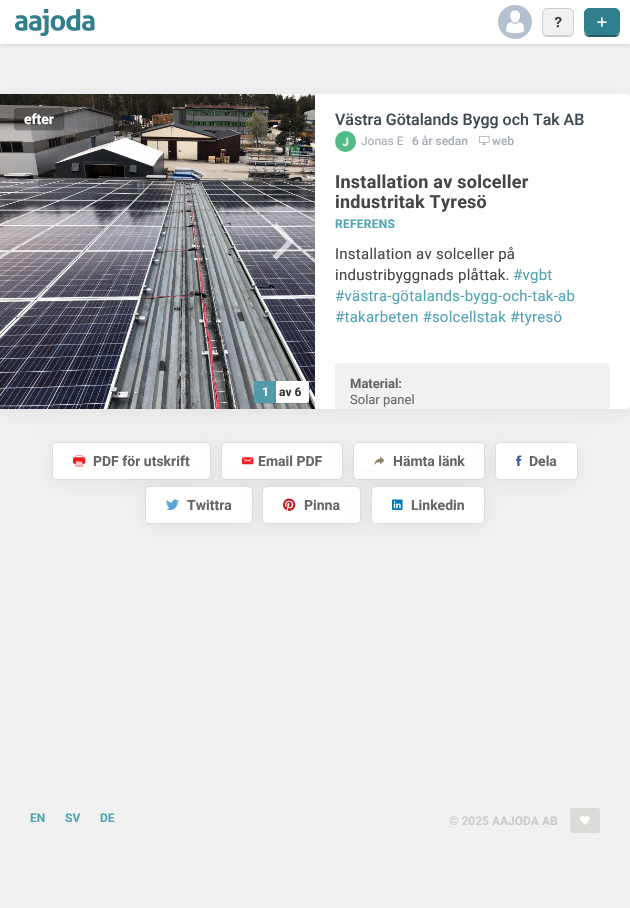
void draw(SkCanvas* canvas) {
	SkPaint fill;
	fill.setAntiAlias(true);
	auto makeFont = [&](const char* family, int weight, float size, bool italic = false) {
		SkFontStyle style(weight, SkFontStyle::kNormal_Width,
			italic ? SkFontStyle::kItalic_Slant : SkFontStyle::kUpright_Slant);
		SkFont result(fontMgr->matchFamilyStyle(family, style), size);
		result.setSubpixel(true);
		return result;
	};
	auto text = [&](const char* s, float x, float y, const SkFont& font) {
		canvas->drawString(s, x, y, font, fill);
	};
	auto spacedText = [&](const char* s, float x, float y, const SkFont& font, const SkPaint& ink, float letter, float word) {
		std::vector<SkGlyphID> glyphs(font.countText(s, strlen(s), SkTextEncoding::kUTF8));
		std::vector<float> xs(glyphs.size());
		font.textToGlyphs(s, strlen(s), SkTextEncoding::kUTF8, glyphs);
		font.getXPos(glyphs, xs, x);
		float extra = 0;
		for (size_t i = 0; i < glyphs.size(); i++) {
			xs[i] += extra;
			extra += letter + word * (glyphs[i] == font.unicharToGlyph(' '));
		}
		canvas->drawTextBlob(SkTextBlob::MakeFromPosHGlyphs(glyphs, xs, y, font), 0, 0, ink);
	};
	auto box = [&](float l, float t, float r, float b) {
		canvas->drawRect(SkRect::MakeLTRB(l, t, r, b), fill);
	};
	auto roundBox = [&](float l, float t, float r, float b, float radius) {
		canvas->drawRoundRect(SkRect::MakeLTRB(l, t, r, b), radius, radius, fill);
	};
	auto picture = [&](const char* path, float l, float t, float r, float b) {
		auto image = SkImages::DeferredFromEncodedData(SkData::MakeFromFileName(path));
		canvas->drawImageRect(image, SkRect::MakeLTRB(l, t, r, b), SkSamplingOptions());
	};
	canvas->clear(0xFFF1F1F1);
	fill.setColor(0x33000000);
	fill.setMaskFilter(SkMaskFilter::MakeBlur(kNormal_SkBlurStyle, 2.5f));
	canvas->drawRect(SkRect::MakeLTRB(0, 0, 630, 44), fill);
	fill.setMaskFilter(nullptr);
	fill.setColor(0xFFFFFFFF);
	box(0, 0, 630, 44);
	picture("image0.png", 15, 8, 95, 36);
	fill.setColor(0xFFEEEEEE);
	canvas->drawCircle(515, 22, 17, fill);
	picture("image1.png", 498, 5, 532, 39);
	fill.setColor(0xFFCCCCCC);
	canvas->drawPath(SkPathBuilder().moveTo(542, 31).cubicTo(542, 37, 545.5f, 37, 550.5f, 37).lineTo(565.5f, 37).cubicTo(570.5f, 37, 574, 37, 574, 31).cubicTo(574, 34, 572, 36, 569, 36).lineTo(547, 36).cubicTo(544, 36, 542, 34, 542, 31).close().detach(), fill);
	fill.setColor(0xFFF1F1F1);
	canvas->drawRoundRect(SkRect::MakeLTRB(542.5f, 8.5f, 573.5f, 35.5f), 4.5f, 4.5f, fill);
	fill.setStyle(SkPaint::kStroke_Style);
	fill.setStrokeWidth(1);
	fill.setColor(0xFFCFCFCF);
	canvas->drawRoundRect(SkRect::MakeLTRB(542.5f, 8.5f, 573.5f, 35.5f), 4.5f, 4.5f, fill);
	picture("image2.png", 555, 16, 562, 28);
	fill.setStyle(SkPaint::kFill_Style);
	fill.setColor(0xFF235E69);
	canvas->drawPath(SkPathBuilder().moveTo(584, 30).cubicTo(584, 37, 587, 37, 593.5f, 37).lineTo(610.5f, 37).cubicTo(617, 37, 620, 37, 620, 30).cubicTo(620, 33, 618, 35, 615, 35).lineTo(589, 35).cubicTo(586, 35, 584, 33, 584, 30).close().detach(), fill);
	fill.setColor(0xFF307F8D);
	canvas->drawRoundRect(SkRect::MakeLTRB(584.5f, 8.5f, 619.5f, 34.5f), 4.5f, 4.5f, fill);
	fill.setStyle(SkPaint::kStroke_Style);
	canvas->drawRoundRect(SkRect::MakeLTRB(584.5f, 8.5f, 619.5f, 34.5f), 4.5f, 4.5f, fill);
	picture("image3.png", 597, 17, 607, 27);
	fill.setStyle(SkPaint::kFill_Style);
	fill.setColor(0x0F000000);
	fill.setMaskFilter(SkMaskFilter::MakeBlur(kNormal_SkBlurStyle, 10));
	canvas->drawRoundRect(SkRect::MakeLTRB(52, 446, 211, 484), 5, 5, fill);
	fill.setMaskFilter(nullptr);
	fill.setColor(0xFFFFFFFF);
	canvas->drawRoundRect(SkRect::MakeLTRB(52.5f, 442.5f, 210.5f, 479.5f), 4.5f, 4.5f, fill);
	fill.setStyle(SkPaint::kStroke_Style);
	fill.setColor(0xFFDDDDDD);
	canvas->drawRoundRect(SkRect::MakeLTRB(52.5f, 442.5f, 210.5f, 479.5f), 4.5f, 4.5f, fill);
	fill.setStyle(SkPaint::kFill_Style);
	fill.setColor(0x0F000000);
	fill.setMaskFilter(SkMaskFilter::MakeBlur(kNormal_SkBlurStyle, 10));
	canvas->drawRoundRect(SkRect::MakeLTRB(221, 446, 343, 484), 5, 5, fill);
	fill.setMaskFilter(nullptr);
	fill.setColor(0xFFFFFFFF);
	canvas->drawRoundRect(SkRect::MakeLTRB(221.5f, 442.5f, 342.5f, 479.5f), 4.5f, 4.5f, fill);
	fill.setStyle(SkPaint::kStroke_Style);
	fill.setColor(0xFFDDDDDD);
	canvas->drawRoundRect(SkRect::MakeLTRB(221.5f, 442.5f, 342.5f, 479.5f), 4.5f, 4.5f, fill);
	fill.setStyle(SkPaint::kFill_Style);
	fill.setColor(0x0F000000);
	fill.setMaskFilter(SkMaskFilter::MakeBlur(kNormal_SkBlurStyle, 10));
	canvas->drawRoundRect(SkRect::MakeLTRB(353, 446, 485, 484), 5, 5, fill);
	fill.setMaskFilter(nullptr);
	fill.setColor(0xFFFFFFFF);
	canvas->drawRoundRect(SkRect::MakeLTRB(353.5f, 442.5f, 484.5f, 479.5f), 4.5f, 4.5f, fill);
	fill.setStyle(SkPaint::kStroke_Style);
	fill.setColor(0xFFDDDDDD);
	canvas->drawRoundRect(SkRect::MakeLTRB(353.5f, 442.5f, 484.5f, 479.5f), 4.5f, 4.5f, fill);
	fill.setStyle(SkPaint::kFill_Style);
	fill.setColor(0x0F000000);
	fill.setMaskFilter(SkMaskFilter::MakeBlur(kNormal_SkBlurStyle, 10));
	canvas->drawRoundRect(SkRect::MakeLTRB(495, 446, 578, 484), 5, 5, fill);
	fill.setMaskFilter(nullptr);
	fill.setColor(0xFFFFFFFF);
	canvas->drawRoundRect(SkRect::MakeLTRB(495.5f, 442.5f, 577.5f, 479.5f), 4.5f, 4.5f, fill);
	fill.setStyle(SkPaint::kStroke_Style);
	fill.setColor(0xFFDDDDDD);
	canvas->drawRoundRect(SkRect::MakeLTRB(495.5f, 442.5f, 577.5f, 479.5f), 4.5f, 4.5f, fill);
	fill.setStyle(SkPaint::kFill_Style);
	fill.setColor(0x0F000000);
	fill.setMaskFilter(SkMaskFilter::MakeBlur(kNormal_SkBlurStyle, 10));
	canvas->drawRoundRect(SkRect::MakeLTRB(0, 98, 630, 413), 4, 4, fill);
	fill.setMaskFilter(nullptr);
	fill.setColor(0xFFFFFFFF);
	canvas->drawPath(SkPathBuilder().moveTo(0, 94).lineTo(626, 94).cubicTo(628, 94, 630, 96, 630, 98).lineTo(630, 405).cubicTo(630, 407, 628, 409, 626, 409).lineTo(0, 409).close().detach(), fill);
	picture("image4.png", 0, 94, 315, 409);
	fill.setColor(0x1A000000);
	canvas->drawPath(SkPathBuilder().moveTo(15, 130).cubicTo(16, 130, 17, 131, 18, 131).lineTo(62, 131).cubicTo(64, 131, 65, 130, 65, 128).lineTo(65, 112).cubicTo(65, 111, 64, 110, 64, 109).lineTo(64, 111).lineTo(64, 127).cubicTo(64, 129, 63, 130, 61, 130).lineTo(17, 130).close().detach(), fill);
	fill.setColor(0x4D000000);
	roundBox(14, 108, 64, 130, 3);
	picture("image5.png", 273, 223, 294, 260);
	fill.setColor(0x26000000);
	canvas->drawPath(SkPathBuilder().moveTo(255, 403).cubicTo(256, 403, 257, 404, 258, 404).lineTo(308, 404).cubicTo(309, 404, 310, 403, 310, 402).lineTo(310, 384).cubicTo(310, 383, 310, 382, 309, 382).lineTo(309, 395).cubicTo(309, 405, 310, 403, 299, 403).lineTo(265, 403).cubicTo(262, 403, 258, 404, 255, 403).close().detach(), fill);
	fill.setColor(0xFFFFFFFF);
	canvas->drawPath(SkPathBuilder().moveTo(257, 381).lineTo(307, 381).cubicTo(308, 381, 309, 382, 309, 383).lineTo(309, 401).cubicTo(309, 402, 308, 403, 307, 403).lineTo(257, 403).cubicTo(255.5f, 403, 254, 401.5f, 254, 400).lineTo(254, 384).cubicTo(254, 382.5f, 255.5f, 381, 257, 381).close().detach(), fill);
	fill.setColor(0xFF529BA8);
	canvas->drawPath(SkPathBuilder().moveTo(256, 381).lineTo(276, 381).lineTo(276, 403).lineTo(256, 403).cubicTo(255, 403, 254, 402, 254, 401).lineTo(254, 383).cubicTo(254, 382, 255, 381, 256, 381).close().detach(), fill);
	fill.setColor(0xFFEEEEEE);
	canvas->drawCircle(345.5f, 141.5f, 10.5f, fill);
	picture("image6.png", 335, 131, 356, 152);
	picture("image7.png", 479, 136, 490, 145);
	fill.setColor(0xFFF1F1F1);
	canvas->drawPath(SkPathBuilder().moveTo(338, 363).lineTo(607, 363).cubicTo(608.5f, 363, 610, 364.5f, 610, 366).lineTo(610, 409).lineTo(335, 409).lineTo(335, 366).cubicTo(335, 364.5f, 336.5f, 363, 338, 363).close().detach(), fill);
	picture("image8.png", 73, 455, 86, 467);
	picture("image9.png", 242, 457, 254, 465);
	picture("image10.png", 374, 456, 385, 465);
	picture("image11.png", 516, 455, 522, 466);
	fill.setColor(0x0F000000);
	fill.setMaskFilter(SkMaskFilter::MakeBlur(kNormal_SkBlurStyle, 10));
	canvas->drawRoundRect(SkRect::MakeLTRB(145, 490, 253, 528), 5, 5, fill);
	fill.setMaskFilter(nullptr);
	fill.setColor(0xFFFFFFFF);
	canvas->drawRoundRect(SkRect::MakeLTRB(145.5f, 486.5f, 252.5f, 523.5f), 4.5f, 4.5f, fill);
	fill.setStyle(SkPaint::kStroke_Style);
	fill.setColor(0xFFDDDDDD);
	canvas->drawRoundRect(SkRect::MakeLTRB(145.5f, 486.5f, 252.5f, 523.5f), 4.5f, 4.5f, fill);
	picture("image12.png", 166, 499, 179, 510);
	fill.setStyle(SkPaint::kFill_Style);
	fill.setColor(0x0F000000);
	fill.setMaskFilter(SkMaskFilter::MakeBlur(kNormal_SkBlurStyle, 10));
	canvas->drawRoundRect(SkRect::MakeLTRB(262, 490, 361, 528), 5, 5, fill);
	fill.setMaskFilter(nullptr);
	fill.setColor(0xFFFFFFFF);
	canvas->drawRoundRect(SkRect::MakeLTRB(262.5f, 486.5f, 360.5f, 523.5f), 4.5f, 4.5f, fill);
	fill.setStyle(SkPaint::kStroke_Style);
	fill.setColor(0xFFDDDDDD);
	canvas->drawRoundRect(SkRect::MakeLTRB(262.5f, 486.5f, 360.5f, 523.5f), 4.5f, 4.5f, fill);
	picture("image13.png", 283, 498, 296, 511);
	fill.setStyle(SkPaint::kFill_Style);
	fill.setColor(0x0F000000);
	fill.setMaskFilter(SkMaskFilter::MakeBlur(kNormal_SkBlurStyle, 10));
	canvas->drawRoundRect(SkRect::MakeLTRB(371, 490, 485, 528), 5, 5, fill);
	fill.setMaskFilter(nullptr);
	fill.setColor(0xFFFFFFFF);
	canvas->drawRoundRect(SkRect::MakeLTRB(371.5f, 486.5f, 484.5f, 523.5f), 4.5f, 4.5f, fill);
	fill.setStyle(SkPaint::kStroke_Style);
	fill.setColor(0xFFDDDDDD);
	canvas->drawRoundRect(SkRect::MakeLTRB(371.5f, 486.5f, 484.5f, 523.5f), 4.5f, 4.5f, fill);
	picture("image14.png", 392, 499, 403, 510);
	fill.setStyle(SkPaint::kFill_Style);
	fill.setColor(0xFFDCDBD7);
	roundBox(570, 808, 600, 833, 3);
	picture("image15.png", 580, 816, 590, 825);
	auto font1 = makeFont("Roboto", 700, 14);
	fill.setColor(0xFFFFFFFF);
	text("efter", 24, 124, font1);
	auto font2 = makeFont("Roboto", 700, 12);
	text("1", 262, 396, font2);
	fill.setColor(0xFF333333);
	text("av 6", 279, 396, font2);
	auto font3 = makeFont("Roboto", 500, 16);
	fill.setColor(0xFF3B4A51);
	text("Västra Götalands Bygg och Tak AB", 335, 125, font3);
	auto font4 = makeFont("Roboto", 400, 12);
	fill.setColor(0xFFA6ABB3);
	text("Jonas E", 361, 145, font4);
	auto font5 = makeFont("Roboto", 500, 12);
	text("6 år sedan", 412, 145, font5);
	text("web", 492, 145, font5);
	auto font6 = makeFont("Roboto", 700, 18);
	fill.setColor(0xFF464646);
	spacedText("Installation av solceller", 335, 188, font6, fill, 0.25f, 0);
	spacedText("industritak Tyresö", 335, 208, font6, fill, 0.25f, 0);
	fill.setColor(0xFF50A3B3);
	spacedText("REFERENS", 335, 228, font2, fill, 0.25f, 0);
	auto font7 = makeFont("Roboto", 400, 15);
	fill.setColor(0xFF464646);
	spacedText("Installation av solceller på", 335, 259, font7, fill, 0.25f, 0);
	spacedText("industribyggnads plåttak.", 335, 280, font7, fill, 0.25f, 0);
	fill.setColor(0xFF50A3B3);
	spacedText("#vgbt", 513, 280, font7, fill, 0.25f, 0);
	spacedText("#västra-götalands-bygg-och-tak-ab", 335, 301, font7, fill, 0.25f, 0);
	spacedText("#takarbeten #solcellstak #tyresö", 335, 322, font7, fill, 0.25f, 0);
	auto font8 = makeFont("Roboto", 700, 13);
	fill.setColor(0xFF666666);
	text("Material:", 350, 388, font8);
	auto font9 = makeFont("Roboto", 400, 13);
	text("Solar panel", 350, 404, font9);
	text("PDF för utskrift", 93, 466, font1);
	text("Email PDF", 258, 466, font1);
	text("Hämta länk", 393, 466, font1);
	text("Dela", 529, 466, font1);
	text("Twittra", 187, 510, font1);
	text("Pinna", 304, 510, font1);
	text("Linkedin", 411, 510, font1);
	fill.setColor(0xFF50A3B3);
	text("EN", 30, 822, font2);
	text("SV", 65, 822, font2);
	text("DE", 100, 822, font2);
	fill.setColor(0xFFCCCCCC);
	text("© 2025 AAJODA AB", 449, 825, font2);
}
